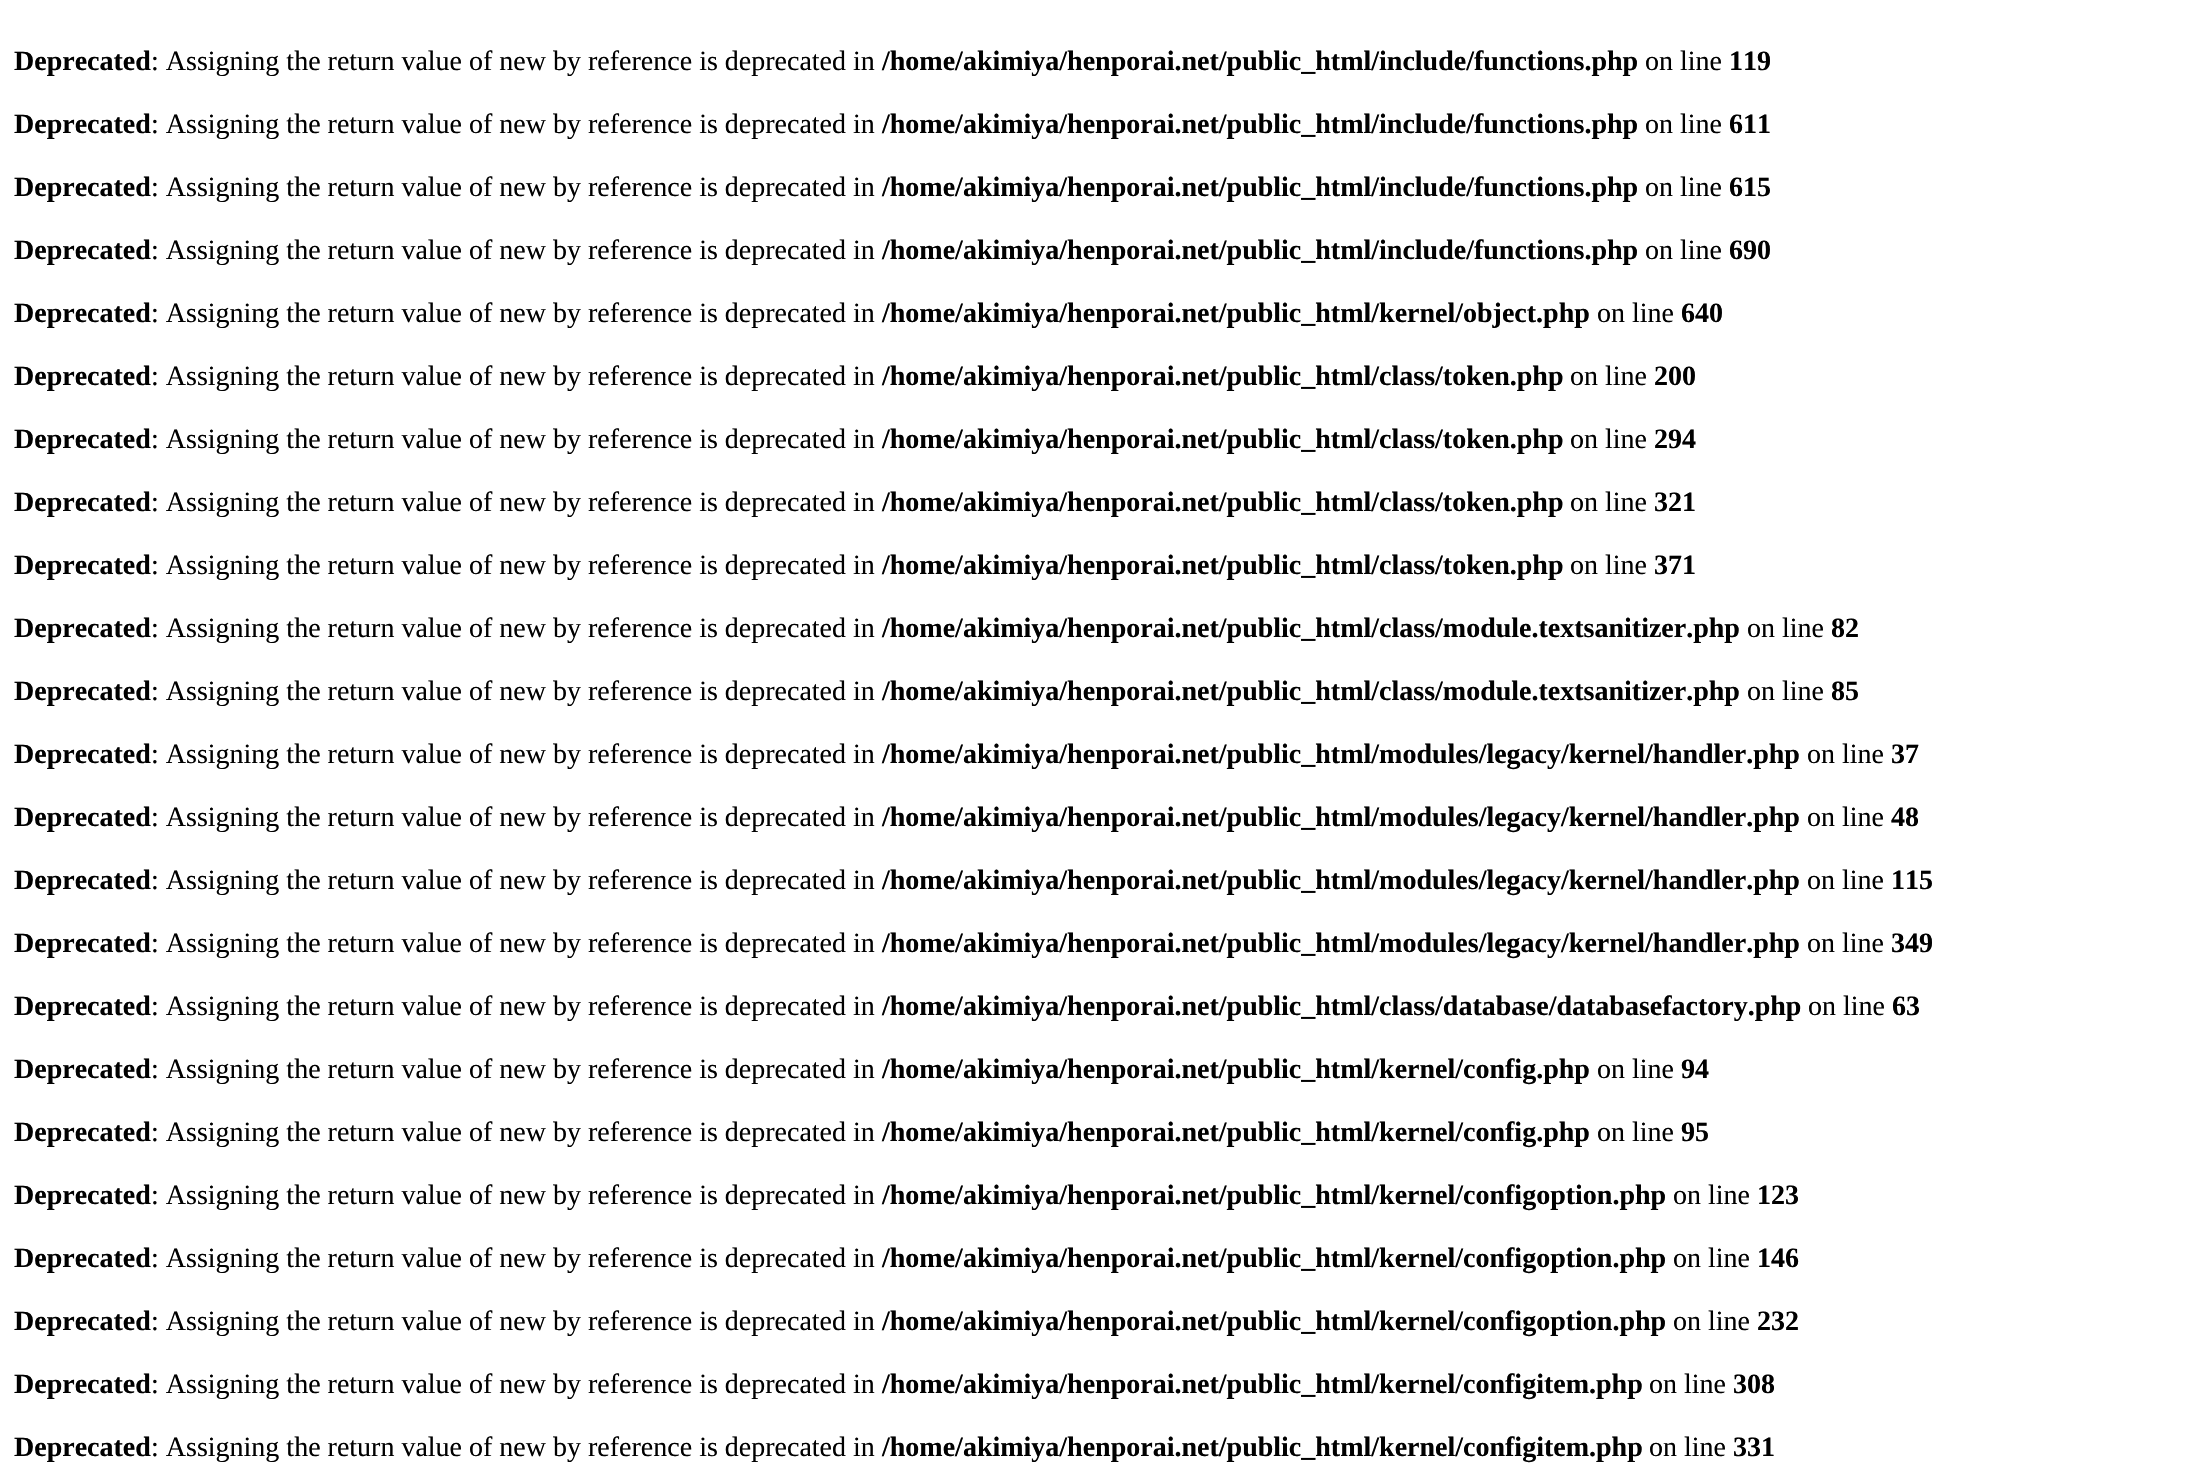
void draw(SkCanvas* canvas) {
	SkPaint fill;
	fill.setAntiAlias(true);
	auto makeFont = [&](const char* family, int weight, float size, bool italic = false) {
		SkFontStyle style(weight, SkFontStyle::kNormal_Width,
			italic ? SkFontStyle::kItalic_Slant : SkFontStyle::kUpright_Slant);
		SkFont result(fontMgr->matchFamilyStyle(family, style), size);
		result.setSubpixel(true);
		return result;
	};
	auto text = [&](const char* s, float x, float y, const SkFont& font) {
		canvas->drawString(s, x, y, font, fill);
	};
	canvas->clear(0xFFFFFFFF);
	auto font1 = makeFont("Liberation Serif", 700, 28);
	fill.setColor(0xFF000000);
	text("Deprecated", 14, 70, font1);
	auto font2 = makeFont("Liberation Serif", 400, 28);
	text(": Assigning the return value of new by reference is deprecated in", 151, 70, font2);
	text("/home/akimiya/henporai.net/public_html/include/functions.php", 882, 70, font1);
	text("on line", 1645, 70, font2);
	text("119", 1729, 70, font1);
	text("Deprecated", 14, 133, font1);
	text(": Assigning the return value of new by reference is deprecated in", 151, 133, font2);
	text("/home/akimiya/henporai.net/public_html/include/functions.php", 882, 133, font1);
	text("on line", 1645, 133, font2);
	text("611", 1729, 133, font1);
	text("Deprecated", 14, 196, font1);
	text(": Assigning the return value of new by reference is deprecated in", 151, 196, font2);
	text("/home/akimiya/henporai.net/public_html/include/functions.php", 882, 196, font1);
	text("on line", 1645, 196, font2);
	text("615", 1729, 196, font1);
	text("Deprecated", 14, 259, font1);
	text(": Assigning the return value of new by reference is deprecated in", 151, 259, font2);
	text("/home/akimiya/henporai.net/public_html/include/functions.php", 882, 259, font1);
	text("on line", 1645, 259, font2);
	text("690", 1729, 259, font1);
	text("Deprecated", 14, 322, font1);
	text(": Assigning the return value of new by reference is deprecated in", 151, 322, font2);
	text("/home/akimiya/henporai.net/public_html/kernel/object.php", 882, 322, font1);
	text("on line", 1597, 322, font2);
	text("640", 1681, 322, font1);
	text("Deprecated", 14, 385, font1);
	text(": Assigning the return value of new by reference is deprecated in", 151, 385, font2);
	text("/home/akimiya/henporai.net/public_html/class/token.php", 882, 385, font1);
	text("on line", 1570, 385, font2);
	text("200", 1654, 385, font1);
	text("Deprecated", 14, 448, font1);
	text(": Assigning the return value of new by reference is deprecated in", 151, 448, font2);
	text("/home/akimiya/henporai.net/public_html/class/token.php", 882, 448, font1);
	text("on line", 1570, 448, font2);
	text("294", 1654, 448, font1);
	text("Deprecated", 14, 511, font1);
	text(": Assigning the return value of new by reference is deprecated in", 151, 511, font2);
	text("/home/akimiya/henporai.net/public_html/class/token.php", 882, 511, font1);
	text("on line", 1570, 511, font2);
	text("321", 1654, 511, font1);
	text("Deprecated", 14, 574, font1);
	text(": Assigning the return value of new by reference is deprecated in", 151, 574, font2);
	text("/home/akimiya/henporai.net/public_html/class/token.php", 882, 574, font1);
	text("on line", 1570, 574, font2);
	text("371", 1654, 574, font1);
	text("Deprecated", 14, 637, font1);
	text(": Assigning the return value of new by reference is deprecated in", 151, 637, font2);
	text("/home/akimiya/henporai.net/public_html/class/module.textsanitizer.php", 882, 637, font1);
	text("on line", 1747, 637, font2);
	text("82", 1831, 637, font1);
	text("Deprecated", 14, 700, font1);
	text(": Assigning the return value of new by reference is deprecated in", 151, 700, font2);
	text("/home/akimiya/henporai.net/public_html/class/module.textsanitizer.php", 882, 700, font1);
	text("on line", 1747, 700, font2);
	text("85", 1831, 700, font1);
	text("Deprecated", 14, 763, font1);
	text(": Assigning the return value of new by reference is deprecated in", 151, 763, font2);
	text("/home/akimiya/henporai.net/public_html/modules/legacy/kernel/handler.php", 882, 763, font1);
	text("on line", 1807, 763, font2);
	text("37", 1891, 763, font1);
	text("Deprecated", 14, 826, font1);
	text(": Assigning the return value of new by reference is deprecated in", 151, 826, font2);
	text("/home/akimiya/henporai.net/public_html/modules/legacy/kernel/handler.php", 882, 826, font1);
	text("on line", 1807, 826, font2);
	text("48", 1891, 826, font1);
	text("Deprecated", 14, 889, font1);
	text(": Assigning the return value of new by reference is deprecated in", 151, 889, font2);
	text("/home/akimiya/henporai.net/public_html/modules/legacy/kernel/handler.php", 882, 889, font1);
	text("on line", 1807, 889, font2);
	text("115", 1891, 889, font1);
	text("Deprecated", 14, 952, font1);
	text(": Assigning the return value of new by reference is deprecated in", 151, 952, font2);
	text("/home/akimiya/henporai.net/public_html/modules/legacy/kernel/handler.php", 882, 952, font1);
	text("on line", 1807, 952, font2);
	text("349", 1891, 952, font1);
	text("Deprecated", 14, 1015, font1);
	text(": Assigning the return value of new by reference is deprecated in", 151, 1015, font2);
	text("/home/akimiya/henporai.net/public_html/class/database/databasefactory.php", 882, 1015, font1);
	text("on line", 1808, 1015, font2);
	text("63", 1892, 1015, font1);
	text("Deprecated", 14, 1078, font1);
	text(": Assigning the return value of new by reference is deprecated in", 151, 1078, font2);
	text("/home/akimiya/henporai.net/public_html/kernel/config.php", 882, 1078, font1);
	text("on line", 1597, 1078, font2);
	text("94", 1681, 1078, font1);
	text("Deprecated", 14, 1141, font1);
	text(": Assigning the return value of new by reference is deprecated in", 151, 1141, font2);
	text("/home/akimiya/henporai.net/public_html/kernel/config.php", 882, 1141, font1);
	text("on line", 1597, 1141, font2);
	text("95", 1681, 1141, font1);
	text("Deprecated", 14, 1204, font1);
	text(": Assigning the return value of new by reference is deprecated in", 151, 1204, font2);
	text("/home/akimiya/henporai.net/public_html/kernel/configoption.php", 882, 1204, font1);
	text("on line", 1673, 1204, font2);
	text("123", 1757, 1204, font1);
	text("Deprecated", 14, 1267, font1);
	text(": Assigning the return value of new by reference is deprecated in", 151, 1267, font2);
	text("/home/akimiya/henporai.net/public_html/kernel/configoption.php", 882, 1267, font1);
	text("on line", 1673, 1267, font2);
	text("146", 1757, 1267, font1);
	text("Deprecated", 14, 1330, font1);
	text(": Assigning the return value of new by reference is deprecated in", 151, 1330, font2);
	text("/home/akimiya/henporai.net/public_html/kernel/configoption.php", 882, 1330, font1);
	text("on line", 1673, 1330, font2);
	text("232", 1757, 1330, font1);
	text("Deprecated", 14, 1393, font1);
	text(": Assigning the return value of new by reference is deprecated in", 151, 1393, font2);
	text("/home/akimiya/henporai.net/public_html/kernel/configitem.php", 882, 1393, font1);
	text("on line", 1649, 1393, font2);
	text("308", 1733, 1393, font1);
	text("Deprecated", 14, 1456, font1);
	text(": Assigning the return value of new by reference is deprecated in", 151, 1456, font2);
	text("/home/akimiya/henporai.net/public_html/kernel/configitem.php", 882, 1456, font1);
	text("on line", 1649, 1456, font2);
	text("331", 1733, 1456, font1);
}
